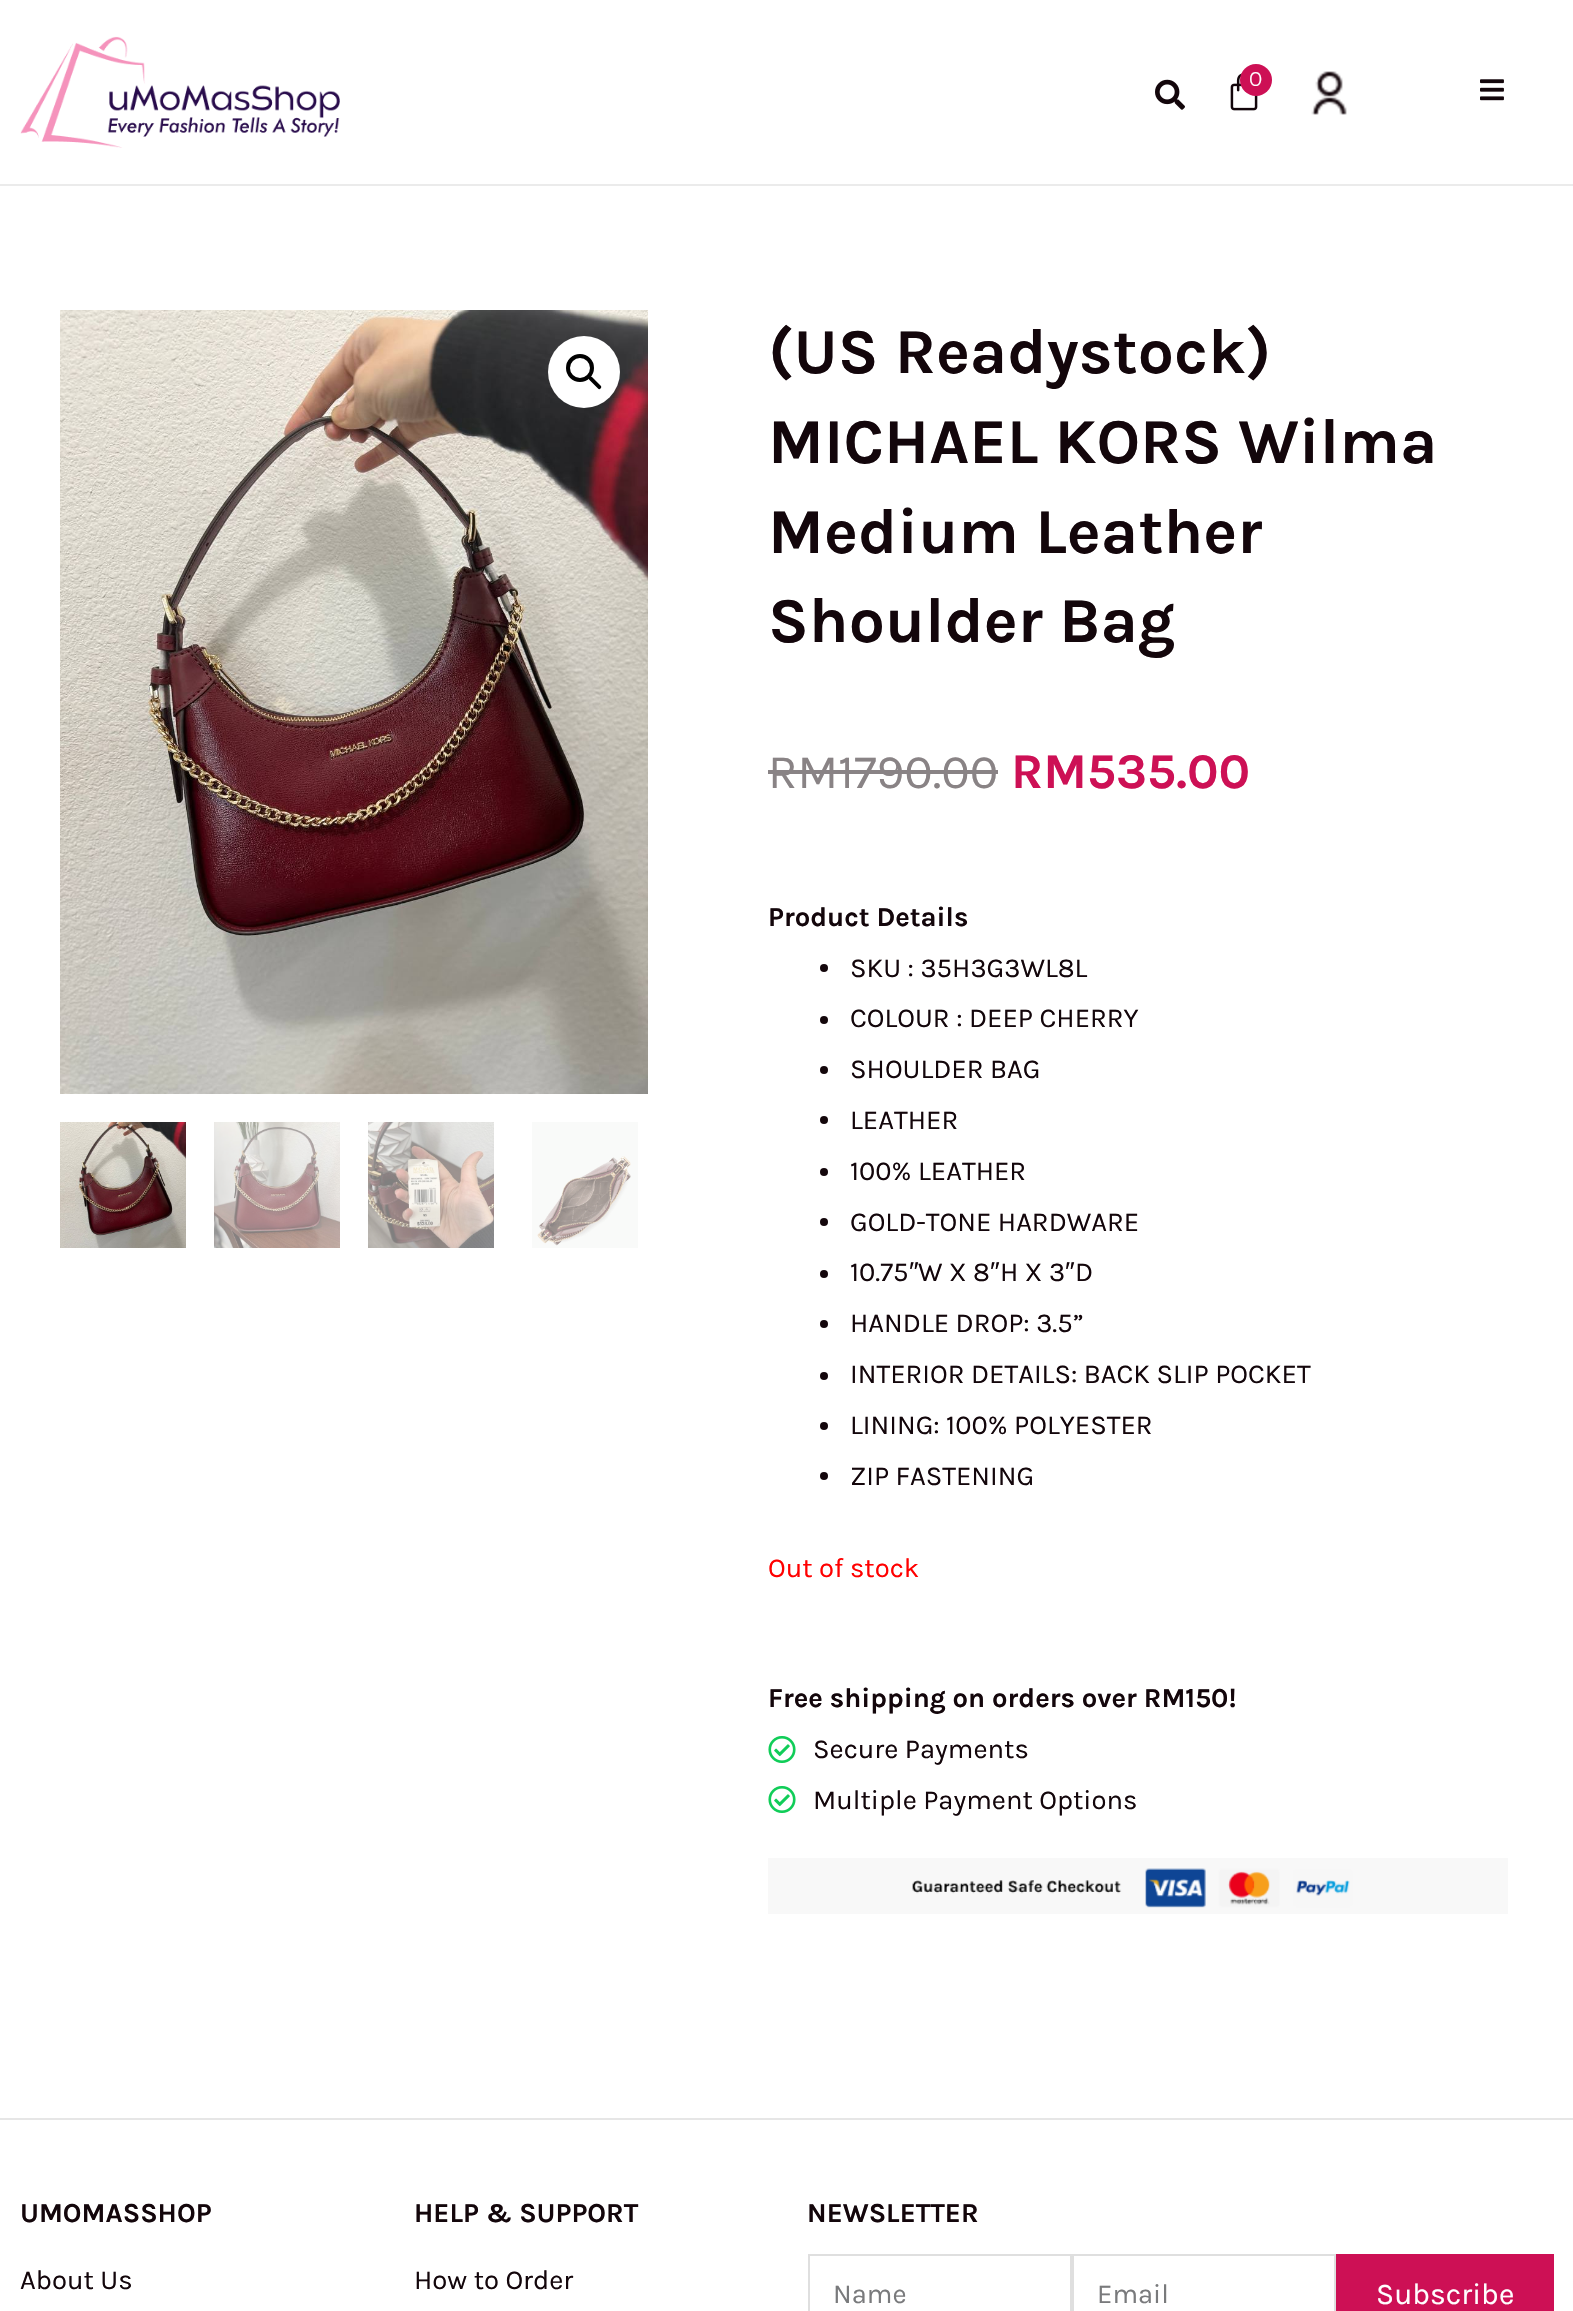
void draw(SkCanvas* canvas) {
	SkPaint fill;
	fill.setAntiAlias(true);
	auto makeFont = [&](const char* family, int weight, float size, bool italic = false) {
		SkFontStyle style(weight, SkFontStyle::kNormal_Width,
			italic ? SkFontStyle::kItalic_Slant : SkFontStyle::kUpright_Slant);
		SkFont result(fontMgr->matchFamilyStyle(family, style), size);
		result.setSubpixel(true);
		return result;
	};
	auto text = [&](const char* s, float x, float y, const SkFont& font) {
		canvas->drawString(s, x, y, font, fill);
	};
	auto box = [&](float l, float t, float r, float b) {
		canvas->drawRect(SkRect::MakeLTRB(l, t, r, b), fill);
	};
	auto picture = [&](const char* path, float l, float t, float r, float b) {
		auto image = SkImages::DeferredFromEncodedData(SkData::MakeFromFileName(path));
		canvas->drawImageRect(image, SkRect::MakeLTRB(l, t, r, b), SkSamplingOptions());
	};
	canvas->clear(0xFFFFFFFF);
	fill.setColor(0xFFEBEBEB);
	box(0, 184, 1573, 186);
	picture("image0.png", 20, 36, 340, 148);
	picture("image1.png", 1155, 79, 1185, 110);
	picture("image2.png", 1230, 73, 1258, 111);
	fill.setColor(0xFFCD1055);
	canvas->drawCircle(1256, 80, 16, fill);
	picture("image3.png", 1311, 71, 1347, 115);
	picture("image4.png", 1480, 79, 1504, 101);
	picture("image5.png", 60, 310, 648, 1094);
	fill.setColor(0xFFFFFFFF);
	canvas->drawCircle(584, 372, 36, fill);
	fill.setStyle(SkPaint::kStroke_Style);
	fill.setStrokeWidth(4);
	fill.setColor(0xFF000000);
	canvas->drawCircle(580, 368, 12, fill);
	fill.setStyle(SkPaint::kFill_Style);
	canvas->drawPath(SkPathBuilder().moveTo(589.5f, 377).cubicTo(590, 376.5f, 591.5f, 376.5f, 592, 377).lineTo(600.5f, 385.5f).cubicTo(601.5f, 386.5f, 601.5f, 387.5f, 600.5f, 388.5f).cubicTo(600, 389.5f, 598.5f, 389.5f, 598, 388.5f).lineTo(589.5f, 380).cubicTo(588.5f, 379, 588.5f, 378, 589.5f, 377).close().detach(), fill);
	picture("image6.png", 60, 1122, 186, 1248);
	picture("image7.png", 214, 1122, 340, 1248);
	picture("image8.png", 368, 1122, 494, 1248);
	picture("image9.png", 532, 1122, 638, 1248);
	fill.setColor(0xFF898385);
	box(768, 770, 998, 774);
	fill.setColor(0xFF13060B);
	canvas->drawCircle(824, 968, 4, fill);
	canvas->drawCircle(824, 1020, 4, fill);
	canvas->drawCircle(824, 1070, 4, fill);
	canvas->drawCircle(824, 1120, 4, fill);
	canvas->drawCircle(824, 1172, 4, fill);
	canvas->drawCircle(824, 1222, 4, fill);
	canvas->drawCircle(824, 1274, 4, fill);
	canvas->drawCircle(824, 1324, 4, fill);
	canvas->drawCircle(824, 1376, 4, fill);
	canvas->drawCircle(824, 1426, 4, fill);
	canvas->drawCircle(824, 1476, 4, fill);
	picture("image10.png", 768, 1736, 796, 1763);
	picture("image10.png", 768, 1786, 796, 1813);
	picture("image11.png", 768, 1858, 1508, 1914);
	fill.setColor(0xFFE6E6E6);
	box(0, 2118, 1573, 2120);
	fill.setStyle(SkPaint::kStroke_Style);
	fill.setStrokeWidth(2);
	fill.setColor(0xFFDFDFDF);
	canvas->drawRect(SkRect::MakeLTRB(809, 2255, 1071, 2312), fill);
	canvas->drawRect(SkRect::MakeLTRB(1073, 2255, 1335, 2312), fill);
	fill.setStyle(SkPaint::kFill_Style);
	fill.setColor(0xFFCD1055);
	box(1336, 2254, 1554, 2311);
	auto font1 = makeFont("Montserrat", 100, 20);
	fill.setColor(0xFFFFFFFF);
	text("0", 1249, 86, font1);
	auto font2 = makeFont("Karla", 700, 64);
	fill.setColor(0xFF13060B);
	text("(US Readystock)", 768, 373, font2);
	text("MICHAEL KORS Wilma", 768, 463, font2);
	text("Medium Leather", 768, 553, font2);
	text("Shoulder Bag", 768, 642, font2);
	auto font3 = makeFont("Karla", 400, 48);
	fill.setColor(0xFF898385);
	text("RM1790.00", 768, 788, font3);
	auto font4 = makeFont("Karla", 700, 50);
	fill.setColor(0xFFCD1055);
	text("RM535.00", 1011, 788, font4);
	auto font5 = makeFont("Karla", 700, 27.4f);
	fill.setColor(0xFF13060B);
	text("Product Details", 768, 926, font5);
	auto font6 = makeFont("Karla", 400, 27.4f);
	text("SKU : 35H3G3WL8L", 850, 977, font6);
	text("COLOUR : DEEP CHERRY", 850, 1027, font6);
	text("SHOULDER BAG", 850, 1078, font6);
	text("LEATHER", 850, 1129, font6);
	text("100% LEATHER", 850, 1180, font6);
	text("GOLD-TONE HARDWARE", 850, 1231, font6);
	text("10.75", 850, 1281, font6);
	auto font7 = makeFont("Liberation Sans", 400, 27.4f);
	text("″", 909, 1281, font7);
	text("W X 8", 918, 1281, font6);
	text("″", 990, 1281, font7);
	text("H X 3", 1000, 1281, font6);
	text("″", 1065, 1281, font7);
	text("D", 1075, 1281, font6);
	text("HANDLE DROP: 3.5”", 850, 1332, font6);
	text("INTERIOR DETAILS: BACK SLIP POCKET", 850, 1383, font6);
	text("LINING: 100% POLYESTER", 850, 1434, font6);
	text("ZIP FASTENING", 850, 1485, font6);
	fill.setColor(0xFFFF0000);
	text("Out of stock", 768, 1577, font6);
	fill.setColor(0xFF13060B);
	text("Free shipping on orders over RM150!", 768, 1707, font5);
	text("Secure Payments", 813, 1758, font6);
	text("Multiple Payment Options", 813, 1809, font6);
	text("UMOMASSHOP", 20, 2222, font5);
	text("About Us", 20, 2289, font6);
	text("HELP & SUPPORT", 414, 2222, font5);
	text("How to Order", 414, 2289, font6);
	text("NEWSLETTER", 807, 2222, font5);
	fill.setColor(0xFF797A7C);
	text("Name", 833, 2303, font6);
	text("Email", 1097, 2303, font6);
	auto font8 = makeFont("Karla", 400, 30);
	fill.setColor(0xFFFFFFFF);
	text("Subscribe", 1376, 2304, font8);
}
